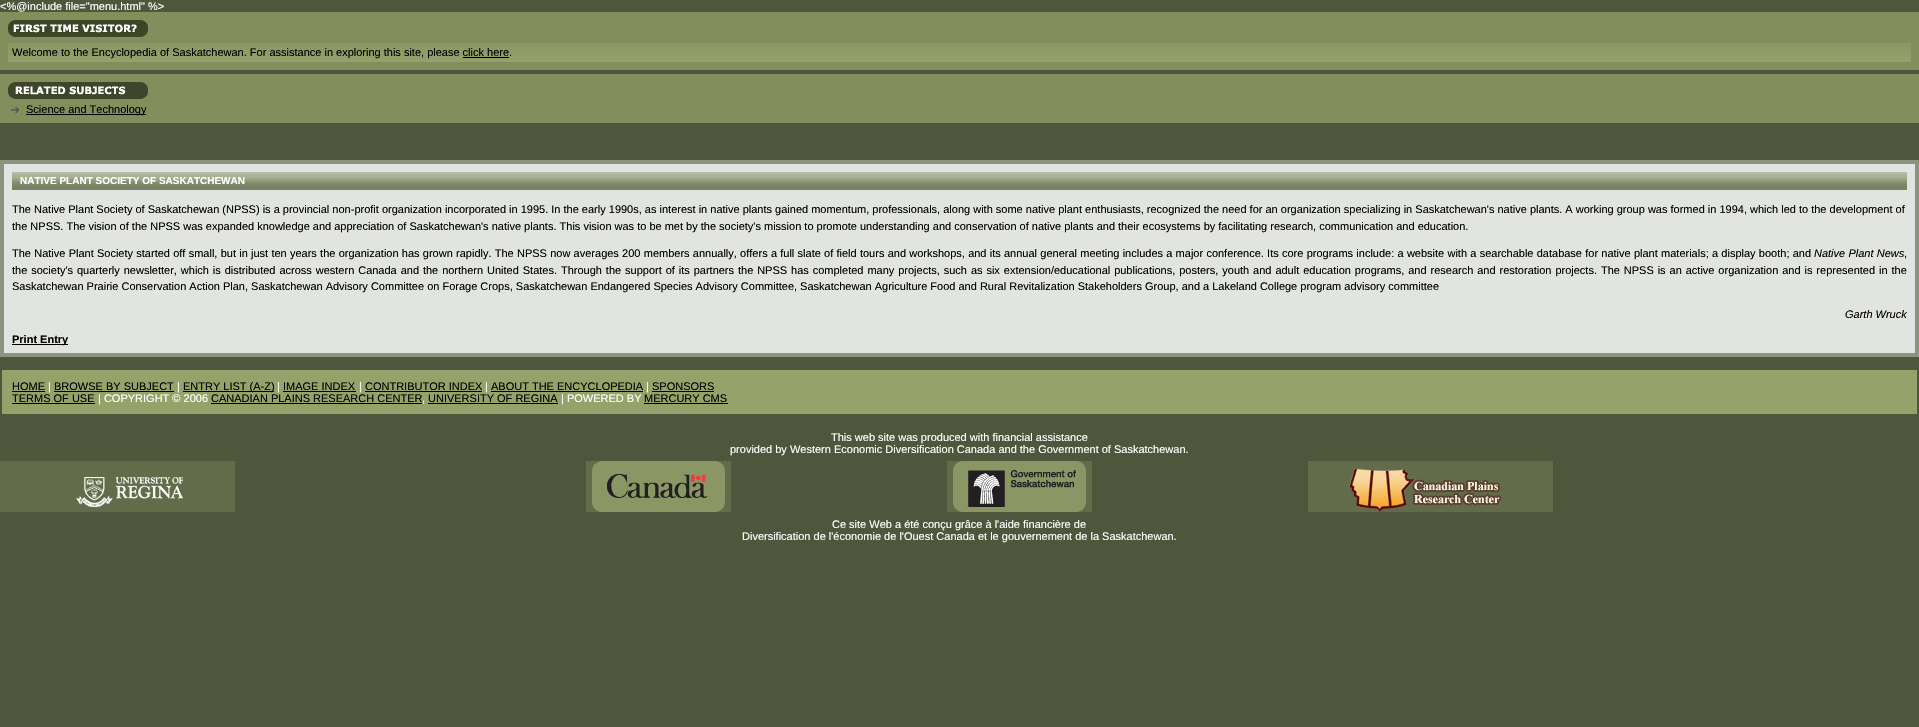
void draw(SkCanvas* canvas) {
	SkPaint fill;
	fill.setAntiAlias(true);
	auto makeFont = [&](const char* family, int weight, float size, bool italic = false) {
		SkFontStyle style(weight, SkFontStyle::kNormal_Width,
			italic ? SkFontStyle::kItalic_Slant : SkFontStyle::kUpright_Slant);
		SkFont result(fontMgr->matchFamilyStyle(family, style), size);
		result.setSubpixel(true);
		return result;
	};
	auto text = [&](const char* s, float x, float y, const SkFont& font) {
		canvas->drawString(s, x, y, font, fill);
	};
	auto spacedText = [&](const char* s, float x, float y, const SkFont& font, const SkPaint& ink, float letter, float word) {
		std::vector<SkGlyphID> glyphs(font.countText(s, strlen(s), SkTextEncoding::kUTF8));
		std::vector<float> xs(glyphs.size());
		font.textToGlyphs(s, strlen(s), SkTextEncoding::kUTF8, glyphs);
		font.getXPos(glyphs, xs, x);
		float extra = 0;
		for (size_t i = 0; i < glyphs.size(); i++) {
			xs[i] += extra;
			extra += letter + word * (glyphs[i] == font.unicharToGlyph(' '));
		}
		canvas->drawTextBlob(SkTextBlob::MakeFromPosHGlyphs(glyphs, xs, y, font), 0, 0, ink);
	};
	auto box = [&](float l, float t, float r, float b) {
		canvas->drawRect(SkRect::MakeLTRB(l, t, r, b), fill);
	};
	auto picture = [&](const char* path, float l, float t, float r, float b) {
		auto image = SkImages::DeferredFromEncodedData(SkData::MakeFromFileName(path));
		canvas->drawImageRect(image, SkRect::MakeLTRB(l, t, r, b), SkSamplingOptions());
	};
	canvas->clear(0xFF4E563C);
	fill.setColor(0xFF838E5D);
	box(0, 12, 1919, 70);
	picture("image0.png", 8, 20, 148, 37);
	picture("image1.png", 8, 43, 1911, 62);
	fill.setColor(0xFF000000);
	box(463, 57, 509, 58);
	fill.setColor(0xFF838E5D);
	box(0, 74, 1919, 123);
	picture("image2.png", 8, 82, 148, 99);
	picture("image3.png", 11, 107, 19, 113);
	fill.setColor(0xFF000000);
	box(26, 114, 146, 115);
	fill.setColor(0xFF8B947F);
	box(0, 160, 1919, 357);
	fill.setColor(0xFFE2E4DF);
	box(4, 164, 1915, 353);
	picture("image4.png", 12, 172, 1907, 190);
	fill.setColor(0xFF000000);
	box(12, 344, 68, 345);
	fill.setColor(0xFF95A269);
	box(2, 370, 1917, 414);
	fill.setColor(0xFF000000);
	box(12, 391, 45, 392);
	box(54, 391, 174, 392);
	box(183, 391, 274, 392);
	box(283, 391, 356, 392);
	box(365, 391, 482, 392);
	box(491, 391, 643, 392);
	box(652, 391, 714, 392);
	box(12, 403, 95, 404);
	box(211, 403, 422, 404);
	box(428, 403, 558, 404);
	box(644, 403, 728, 404);
	picture("image5.png", 0, 461, 235, 512);
	picture("image6.png", 586, 461, 731, 512);
	picture("image7.png", 947, 461, 1092, 512);
	picture("image8.png", 1308, 461, 1553, 512);
	auto font1 = makeFont("Liberation Sans", 400, 11);
	fill.setColor(0xFFFFFFFF);
	text("<%@include file=\"menu.html\" %>", 0, 10, font1);
	fill.setColor(0xFF000000);
	text("Welcome to the Encyclopedia of Saskatchewan. For assistance in exploring this site, please click here.", 12, 56, font1);
	text("Science and Technology", 26, 113, font1);
	auto font2 = makeFont("Liberation Sans", 700, 10);
	fill.setColor(0xFFFFFFFF);
	text("NATIVE PLANT SOCIETY OF SASKATCHEWAN", 20, 184, font2);
	fill.setColor(0xFF000000);
	text("The Native Plant Society of Saskatchewan (NPSS) is a provincial non-profit organization incorporated in 1995. In the early 1990s, as interest in native plants gained momentum, professionals, along with some native plant enthusiasts, recognized the need for an organization specializing in Saskatchewan's native plants. A working group was formed in 1994, which led to the development of", 12, 213, font1);
	text("the NPSS. The vision of the NPSS was expanded knowledge and appreciation of Saskatchewan's native plants. This vision was to be met by the society's mission to promote understanding and conservation of native plants and their ecosystems by facilitating research, communication and education.", 12, 230, font1);
	spacedText("The Native Plant Society started off small, but in just ten years the organization has grown rapidly. The NPSS now averages 200 members annually, offers a full slate of field tours and workshops, and its annual general meeting includes a major conference. Its core programs include: a website with a searchable database for native plant materials; a display booth; and", 12, 257, font1, fill, 0, 0.2f);
	auto font3 = makeFont("Liberation Sans", 400, 11, true);
	spacedText("Native Plant News", 1814, 257, font3, fill, 0, 0.2f);
	text(",", 1904, 257, font1);
	spacedText("the society's quarterly newsletter, which is distributed across western Canada and the northern United States. Through the support of its partners the NPSS has completed many projects, such as six extension/educational publications, posters, youth and adult education programs, and research and restoration projects. The NPSS is an active organization and is represented in the", 12, 274, font1, fill, 0, 0.87f);
	text("Saskatchewan Prairie Conservation Action Plan, Saskatchewan Advisory Committee on Forage Crops, Saskatchewan Endangered Species Advisory Committee, Saskatchewan Agriculture Food and Rural Revitalization Stakeholders Group, and a Lakeland College program advisory committee", 12, 290, font1);
	text("Garth Wruck", 1845, 318, font3);
	auto font4 = makeFont("Liberation Sans", 700, 11);
	text("Print Entry", 12, 343, font4);
	text("HOME", 12, 390, font1);
	fill.setColor(0xFFFFFFFF);
	text("|", 48, 390, font1);
	fill.setColor(0xFF000000);
	text("BROWSE BY SUBJECT", 54, 390, font1);
	fill.setColor(0xFFFFFFFF);
	text("|", 177, 390, font1);
	fill.setColor(0xFF000000);
	text("ENTRY LIST (A-Z)", 183, 390, font1);
	fill.setColor(0xFFFFFFFF);
	text("|", 277, 390, font1);
	fill.setColor(0xFF000000);
	text("IMAGE INDEX", 283, 390, font1);
	fill.setColor(0xFFFFFFFF);
	text("|", 359, 390, font1);
	fill.setColor(0xFF000000);
	text("CONTRIBUTOR INDEX", 365, 390, font1);
	fill.setColor(0xFFFFFFFF);
	text("|", 485, 390, font1);
	fill.setColor(0xFF000000);
	text("ABOUT THE ENCYCLOPEDIA", 491, 390, font1);
	fill.setColor(0xFFFFFFFF);
	text("|", 646, 390, font1);
	fill.setColor(0xFF000000);
	text("SPONSORS", 652, 390, font1);
	text("TERMS OF USE", 12, 402, font1);
	fill.setColor(0xFFFFFFFF);
	text("| COPYRIGHT © 2006", 98, 402, font1);
	fill.setColor(0xFF000000);
	text("CANADIAN PLAINS RESEARCH CENTER", 211, 402, font1);
	fill.setColor(0xFFFFFFFF);
	text(",", 422, 402, font1);
	fill.setColor(0xFF000000);
	text("UNIVERSITY OF REGINA", 428, 402, font1);
	fill.setColor(0xFFFFFFFF);
	text("| POWERED BY", 561, 402, font1);
	fill.setColor(0xFF000000);
	text("MERCURY CMS", 644, 402, font1);
	fill.setColor(0xFFFFFFFF);
	text("This web site was produced with financial assistance", 831, 441, font1);
	text("provided by Western Economic Diversification Canada and the Government of Saskatchewan.", 730, 453, font1);
	text("Ce site Web a été conçu grâce à l'aide financière de", 832, 528, font1);
	text("Diversification de l'économie de l'Ouest Canada et le gouvernement de la Saskatchewan.", 742, 540, font1);
}
